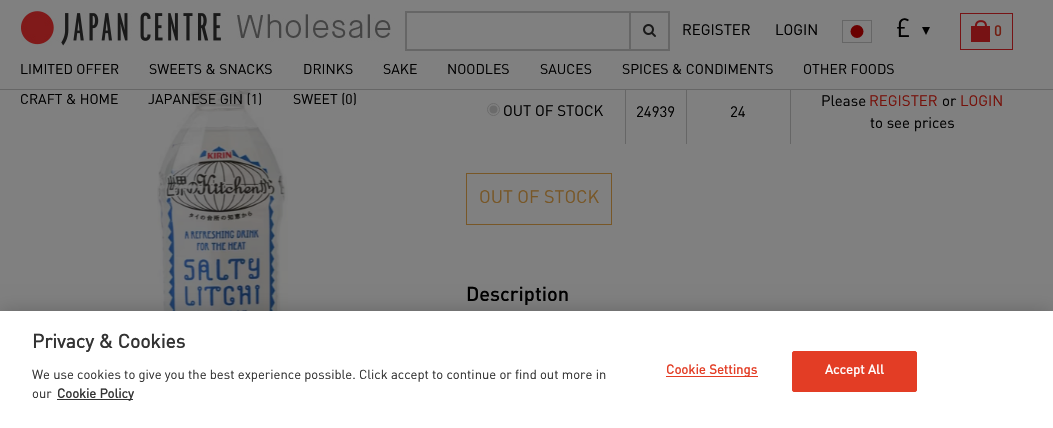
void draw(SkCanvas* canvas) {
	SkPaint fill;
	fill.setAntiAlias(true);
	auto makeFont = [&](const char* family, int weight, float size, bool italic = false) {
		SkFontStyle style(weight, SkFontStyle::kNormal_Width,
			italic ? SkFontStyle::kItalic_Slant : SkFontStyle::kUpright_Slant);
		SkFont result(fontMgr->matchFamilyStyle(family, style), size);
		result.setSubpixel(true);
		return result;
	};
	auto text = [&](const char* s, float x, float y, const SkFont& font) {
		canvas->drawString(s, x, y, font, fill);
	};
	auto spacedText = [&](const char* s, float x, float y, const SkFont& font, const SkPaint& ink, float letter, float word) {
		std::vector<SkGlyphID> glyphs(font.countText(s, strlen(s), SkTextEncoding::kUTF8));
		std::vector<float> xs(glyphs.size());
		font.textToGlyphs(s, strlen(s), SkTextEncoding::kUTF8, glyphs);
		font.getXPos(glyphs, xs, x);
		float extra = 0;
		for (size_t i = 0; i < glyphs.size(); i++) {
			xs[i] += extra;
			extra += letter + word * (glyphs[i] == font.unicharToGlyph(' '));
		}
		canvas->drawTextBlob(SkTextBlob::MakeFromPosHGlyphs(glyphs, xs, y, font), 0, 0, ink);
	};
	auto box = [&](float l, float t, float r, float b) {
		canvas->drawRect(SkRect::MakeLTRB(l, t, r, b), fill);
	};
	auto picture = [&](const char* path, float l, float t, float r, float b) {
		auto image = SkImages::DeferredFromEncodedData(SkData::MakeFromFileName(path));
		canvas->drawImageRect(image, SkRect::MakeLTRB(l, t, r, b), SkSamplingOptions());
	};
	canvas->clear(0xFF808080);
	fill.setColor(0xFF666666);
	box(625, 83, 626, 144);
	box(686, 83, 687, 144);
	box(790, 83, 791, 144);
	fill.setColor(0xFF808080);
	box(625, 83, 791, 89);
	fill.setColor(0xFF666666);
	box(0, 89, 1053, 90);
	picture("image0.png", 21, 11, 391, 46);
	fill.setStyle(SkPaint::kStroke_Style);
	fill.setStrokeWidth(1);
	canvas->drawRect(SkRect::MakeLTRB(842.5f, 20.5f, 871.5f, 42.5f), fill);
	fill.setStyle(SkPaint::kFill_Style);
	fill.setColor(0xFF6A0000);
	canvas->drawCircle(857, 31.5f, 6.5f, fill);
	fill.setColor(0xFF000000);
	canvas->drawPath(SkPathBuilder().moveTo(922, 27).lineTo(930, 27).lineTo(926, 35).close().detach(), fill);
	fill.setStyle(SkPaint::kStroke_Style);
	fill.setColor(0xFF771315);
	canvas->drawRect(SkRect::MakeLTRB(960.5f, 13.5f, 1012.5f, 49.5f), fill);
	picture("image1.png", 971, 20, 990, 42);
	fill.setStrokeWidth(2);
	fill.setColor(0xFF666666);
	canvas->drawRect(SkRect::MakeLTRB(406, 12, 654, 50), fill);
	fill.setStyle(SkPaint::kFill_Style);
	fill.setColor(0xFF808080);
	box(653, 13, 655, 49);
	fill.setStyle(SkPaint::kStroke_Style);
	fill.setColor(0xFF666666);
	canvas->drawRect(SkRect::MakeLTRB(630, 12, 669, 50), fill);
	picture("image2.png", 643, 24, 656, 37);
	picture("image3.png", 157, 90, 288, 311);
	fill.setStrokeWidth(1);
	fill.setColor(0xFF6B6B6B);
	canvas->drawCircle(493.5f, 109.5f, 6, fill);
	fill.setStyle(SkPaint::kFill_Style);
	canvas->drawCircle(493.5f, 109.5f, 4, fill);
	fill.setStyle(SkPaint::kStroke_Style);
	fill.setColor(0xFF785727);
	canvas->drawRect(SkRect::MakeLTRB(466.5f, 173.5f, 611.5f, 224.5f), fill);
	fill.setStyle(SkPaint::kFill_Style);
	fill.setColor(0x33000000);
	fill.setMaskFilter(SkMaskFilter::MakeBlur(kNormal_SkBlurStyle, 9));
	canvas->drawRect(SkRect::MakeLTRB(0, 311, 1053, 428), fill);
	fill.setMaskFilter(nullptr);
	fill.setColor(0xFFFFFFFF);
	box(0, 311, 1053, 428);
	fill.setColor(0xFF333333);
	box(57, 399, 133, 400);
	fill.setColor(0xFFE33D25);
	box(666, 376, 758, 377);
	canvas->drawRoundRect(SkRect::MakeLTRB(792.5f, 351.5f, 916.5f, 391.5f), 1.5f, 1.5f, fill);
	fill.setStyle(SkPaint::kStroke_Style);
	canvas->drawRoundRect(SkRect::MakeLTRB(792.5f, 351.5f, 916.5f, 391.5f), 1.5f, 1.5f, fill);
	auto font1 = makeFont("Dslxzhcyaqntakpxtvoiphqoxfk", 400, 15);
	fill.setStyle(SkPaint::kFill_Style);
	fill.setColor(0xFF000000);
	text("REGISTER", 682, 35, font1);
	text("LOGIN", 775, 35, font1);
	auto font2 = makeFont("Dslxzhcyaqntakpxtvoiphqoxfk", 400, 26);
	text("£", 896, 37, font2);
	auto font3 = makeFont("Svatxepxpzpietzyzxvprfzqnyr", 500, 15);
	fill.setColor(0xFF721F13);
	text("0", 994, 36, font3);
	auto font4 = makeFont("Dslxzhcyaqntakpxtvoiphqoxfk", 400, 14);
	fill.setColor(0xFF000000);
	text("LIMITED OFFER", 20, 74, font4);
	text("SWEETS & SNACKS", 149, 74, font4);
	text("DRINKS", 303, 74, font4);
	text("SAKE", 383, 74, font4);
	text("NOODLES", 447, 74, font4);
	text("SAUCES", 540, 74, font4);
	text("SPICES & CONDIMENTS", 622, 74, font4);
	text("OTHER FOODS", 803, 74, font4);
	text("CRAFT & HOME", 20, 104, font4);
	text("JAPANESE GIN (1)", 148, 104, font4);
	text("SWEET (0)", 293, 104, font4);
	text("OUT OF STOCK", 503, 116, font1);
	text("24939", 636, 117, font1);
	text("24", 730, 117, font1);
	text("Please", 821, 106, font1);
	fill.setColor(0xFF76120B);
	text("REGISTER", 869, 106, font1);
	fill.setColor(0xFF000000);
	text("or", 942, 106, font1);
	fill.setColor(0xFF76120B);
	text("LOGIN", 960, 106, font1);
	fill.setColor(0xFF000000);
	text("to see prices", 870, 128, font1);
	auto font5 = makeFont("Dslxzhcyaqntakpxtvoiphqoxfk", 400, 18);
	fill.setColor(0xFF785727);
	text("OUT OF STOCK", 479, 203, font5);
	auto font6 = makeFont("Svatxepxpzpietzyzxvprfzqnyr", 500, 20);
	fill.setColor(0xFF000000);
	text("Description", 466, 301, font6);
	auto font7 = makeFont("Dslxzhcyaqntakpxtvoiphqoxfk", 700, 19.25f);
	fill.setColor(0xFF333333);
	text("Privacy & Cookies", 32, 348, font7);
	auto font8 = makeFont("Dslxzhcyaqntakpxtvoiphqoxfk", 400, 13);
	text("We use cookies to give you the best experience possible. Click accept to continue or find out more in", 32, 379, font8);
	text("our", 32, 398, font8);
	auto font9 = makeFont("Dslxzhcyaqntakpxtvoiphqoxfk", 700, 13);
	text("Cookie Policy", 57, 398, font9);
	fill.setColor(0xFFE33D25);
	spacedText("Cookie Settings", 666, 374, font9, fill, 0.1f, 0);
	fill.setColor(0xFFFFFFFF);
	spacedText("Accept All", 825, 374, font9, fill, 0.1f, 0);
}
